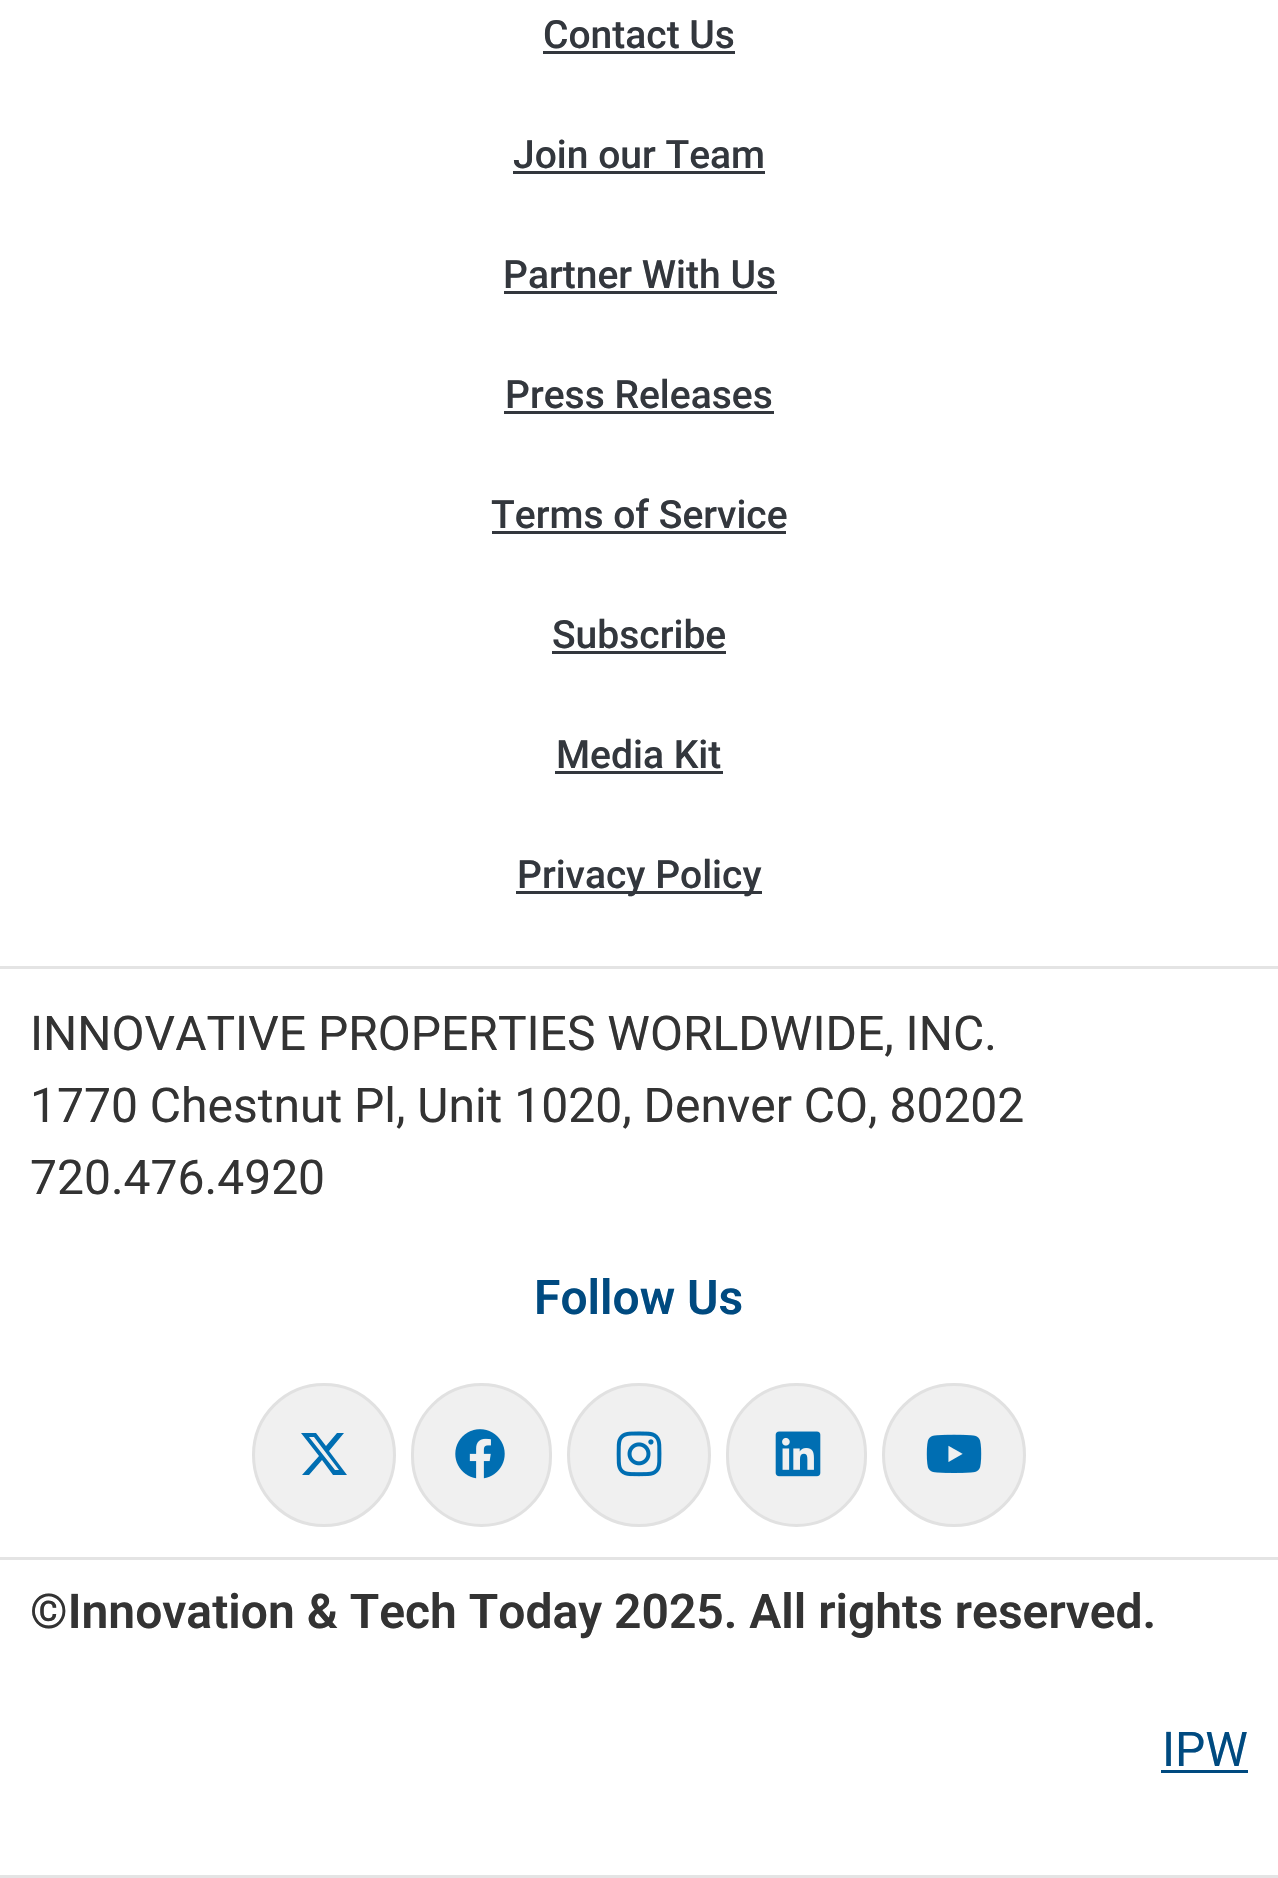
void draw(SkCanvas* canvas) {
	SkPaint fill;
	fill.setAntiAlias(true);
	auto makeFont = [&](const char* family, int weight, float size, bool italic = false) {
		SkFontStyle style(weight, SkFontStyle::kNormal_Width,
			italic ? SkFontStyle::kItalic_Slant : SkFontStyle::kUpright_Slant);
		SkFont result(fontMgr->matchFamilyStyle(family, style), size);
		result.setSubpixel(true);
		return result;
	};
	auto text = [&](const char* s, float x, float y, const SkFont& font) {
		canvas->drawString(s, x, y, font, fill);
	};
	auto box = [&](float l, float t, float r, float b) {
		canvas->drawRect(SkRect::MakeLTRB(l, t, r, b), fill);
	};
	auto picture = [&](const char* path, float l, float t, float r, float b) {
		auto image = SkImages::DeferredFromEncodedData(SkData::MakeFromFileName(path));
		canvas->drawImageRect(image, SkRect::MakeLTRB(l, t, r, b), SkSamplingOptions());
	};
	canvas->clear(0xFFFFFFFF);
	fill.setColor(0xFF33373D);
	box(543, 51, 735, 54);
	box(513, 171, 765, 174);
	box(504, 291, 777, 294);
	box(504, 411, 774, 414);
	box(492, 531, 786, 534);
	box(552, 651, 726, 654);
	box(555, 771, 723, 774);
	box(516, 891, 762, 894);
	fill.setColor(0xFFE4E4E4);
	box(0, 966, 1278, 969);
	box(0, 1557, 1278, 1560);
	fill.setColor(0xFFF0F0F0);
	canvas->drawCircle(324, 1455, 70.5f, fill);
	fill.setStyle(SkPaint::kStroke_Style);
	fill.setStrokeWidth(3);
	fill.setColor(0xFFE1E1E1);
	canvas->drawCircle(324, 1455, 70.5f, fill);
	fill.setStyle(SkPaint::kFill_Style);
	fill.setColor(0xFF006EB2);
	canvas->drawPath(SkPathBuilder().moveTo(337, 1433).lineTo(344, 1433).lineTo(329, 1451).lineTo(347, 1475).lineTo(333, 1475).lineTo(322, 1460).lineTo(309, 1475).lineTo(302, 1475).lineTo(319, 1456).lineTo(301, 1433).lineTo(316, 1433).lineTo(326, 1446).close().moveTo(335, 1470).lineTo(339, 1470).lineTo(314, 1437).lineTo(309, 1437).close().detach(), fill);
	fill.setColor(0xFFF0F0F0);
	canvas->drawRoundRect(SkRect::MakeLTRB(412.5f, 1384.5f, 550.5f, 1525.5f), 69, 69, fill);
	fill.setStyle(SkPaint::kStroke_Style);
	fill.setColor(0xFFE1E1E1);
	canvas->drawRoundRect(SkRect::MakeLTRB(412.5f, 1384.5f, 550.5f, 1525.5f), 69, 69, fill);
	picture("image0.png", 455, 1429, 505, 1479);
	fill.setStyle(SkPaint::kFill_Style);
	fill.setColor(0xFFF0F0F0);
	canvas->drawCircle(639, 1455, 70.5f, fill);
	fill.setStyle(SkPaint::kStroke_Style);
	fill.setColor(0xFFE1E1E1);
	canvas->drawCircle(639, 1455, 70.5f, fill);
	picture("image1.png", 616, 1431, 662, 1477);
	fill.setStyle(SkPaint::kFill_Style);
	fill.setColor(0xFFF0F0F0);
	canvas->drawRoundRect(SkRect::MakeLTRB(727.5f, 1384.5f, 865.5f, 1525.5f), 69, 69, fill);
	fill.setStyle(SkPaint::kStroke_Style);
	fill.setColor(0xFFE1E1E1);
	canvas->drawRoundRect(SkRect::MakeLTRB(727.5f, 1384.5f, 865.5f, 1525.5f), 69, 69, fill);
	picture("image2.png", 775, 1431, 821, 1477);
	fill.setStyle(SkPaint::kFill_Style);
	fill.setColor(0xFFF0F0F0);
	canvas->drawCircle(954, 1455, 70.5f, fill);
	fill.setStyle(SkPaint::kStroke_Style);
	fill.setColor(0xFFE1E1E1);
	canvas->drawCircle(954, 1455, 70.5f, fill);
	picture("image3.png", 926, 1434, 982, 1473);
	fill.setStyle(SkPaint::kFill_Style);
	fill.setColor(0xFFE4E4E4);
	box(0, 1875, 1278, 1878);
	fill.setColor(0xFF004A80);
	box(1161, 1770, 1248, 1773);
	auto font1 = makeFont("Roboto", 500, 39);
	fill.setColor(0xFF33373D);
	text("Contact Us", 543, 48, font1);
	text("Join our Team", 513, 168, font1);
	text("Partner With Us", 503, 288, font1);
	text("Press Releases", 505, 408, font1);
	text("Terms of Service", 491, 528, font1);
	text("Subscribe", 552, 648, font1);
	text("Media Kit", 556, 768, font1);
	text("Privacy Policy", 517, 888, font1);
	auto font2 = makeFont("Roboto", 400, 48);
	fill.setColor(0xFF333333);
	text("INNOVATIVE PROPERTIES WORLDWIDE, INC.", 30, 1050, font2);
	text("1770 Chestnut Pl, Unit 1020, Denver CO, 80202", 30, 1122, font2);
	text("720.476.4920", 30, 1194, font2);
	auto font3 = makeFont("Roboto", 600, 48);
	fill.setColor(0xFF004A80);
	text("Follow Us", 534, 1314, font3);
	fill.setColor(0xFF333333);
	text("©Innovation & Tech Today 2025. All rights reserved.", 30, 1628, font3);
	fill.setColor(0xFF004A80);
	text("IPW", 1162, 1766, font2);
}
